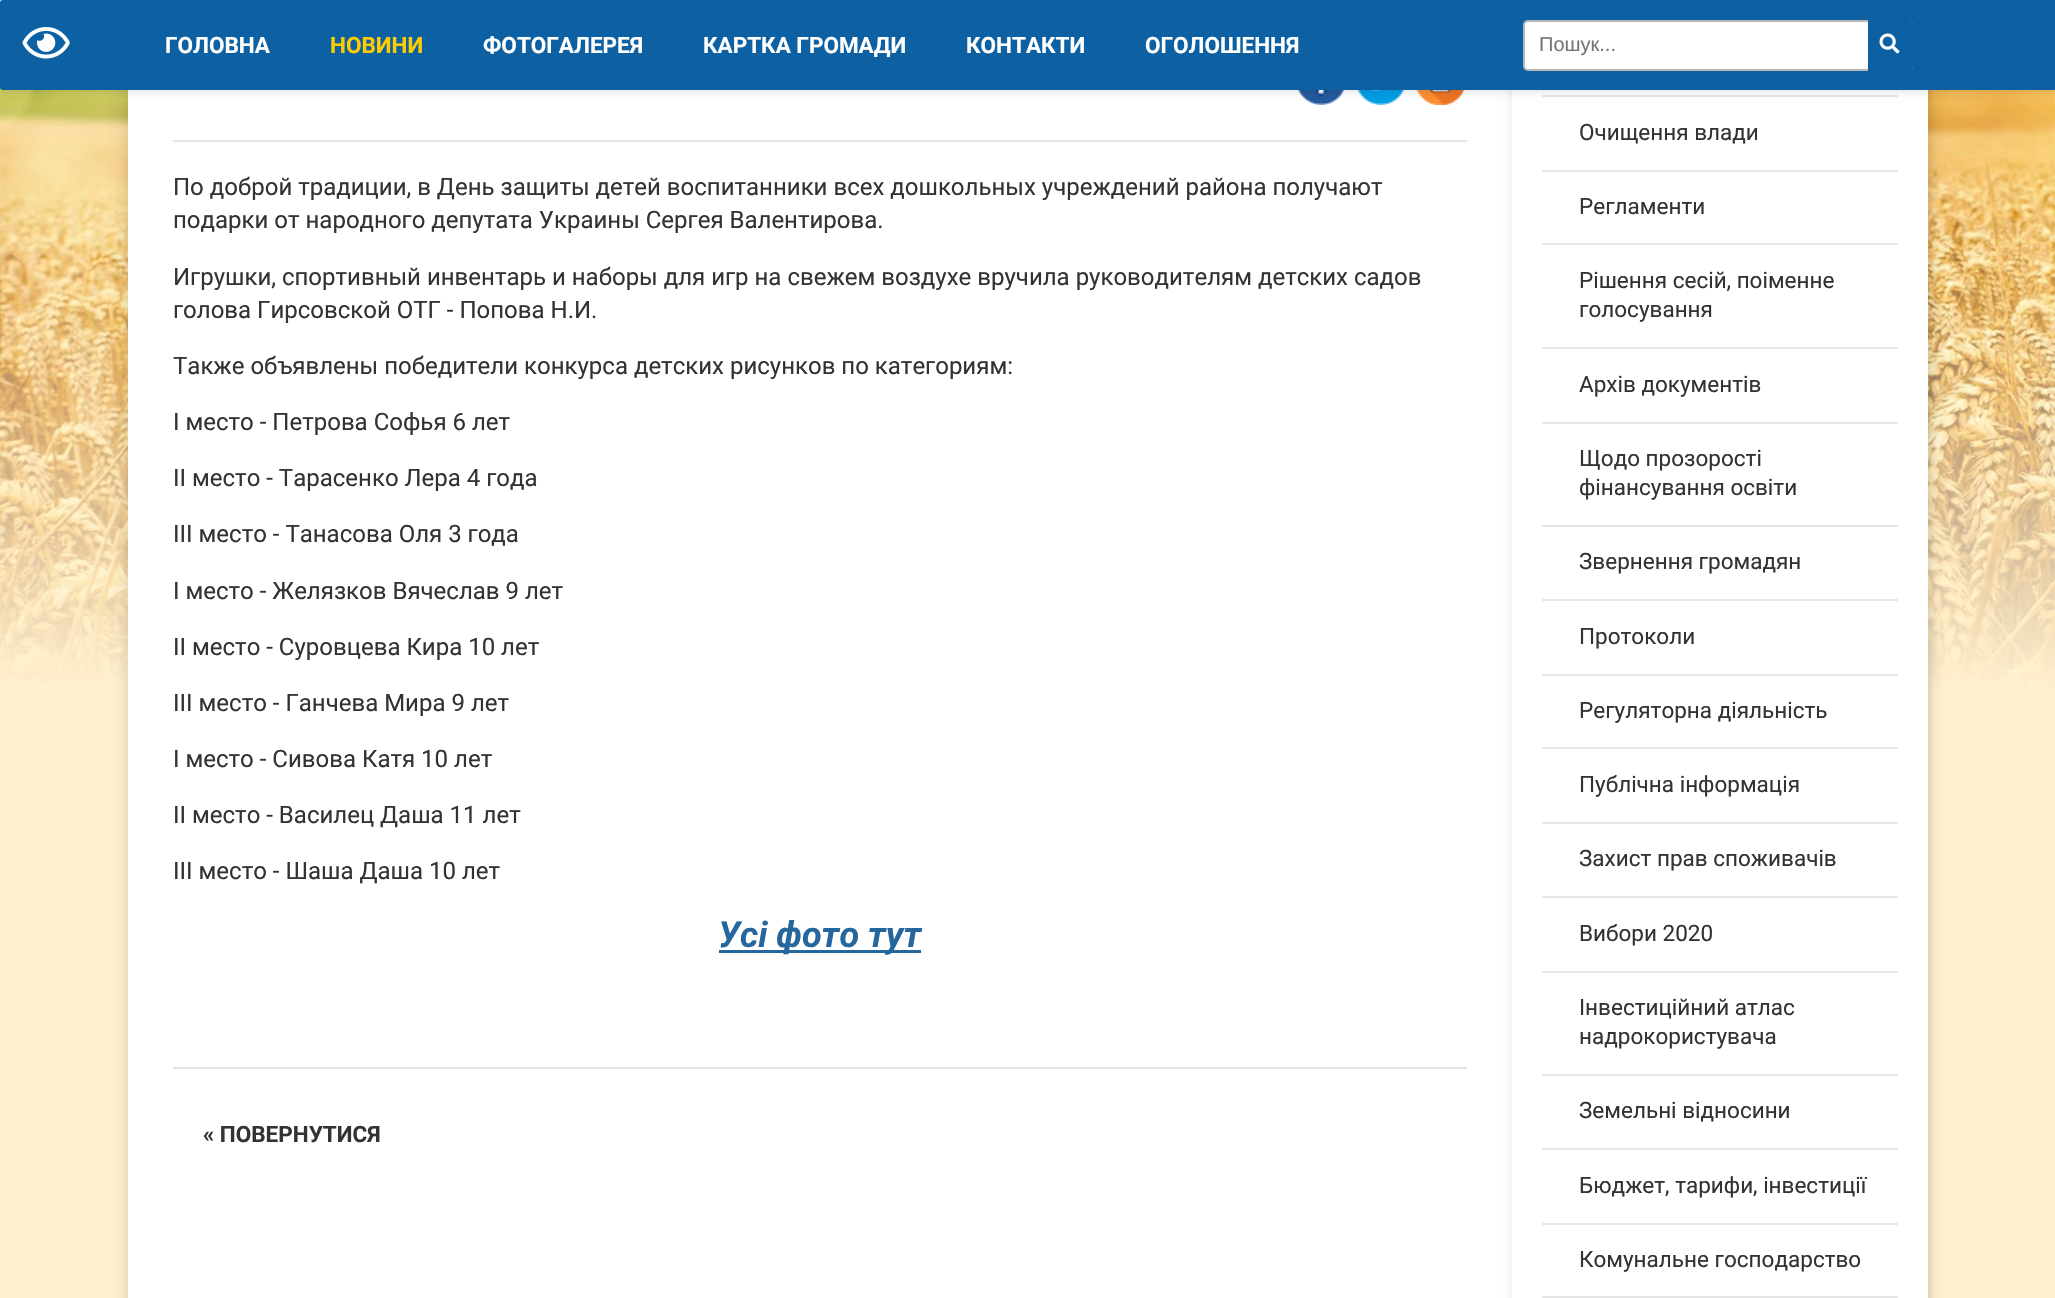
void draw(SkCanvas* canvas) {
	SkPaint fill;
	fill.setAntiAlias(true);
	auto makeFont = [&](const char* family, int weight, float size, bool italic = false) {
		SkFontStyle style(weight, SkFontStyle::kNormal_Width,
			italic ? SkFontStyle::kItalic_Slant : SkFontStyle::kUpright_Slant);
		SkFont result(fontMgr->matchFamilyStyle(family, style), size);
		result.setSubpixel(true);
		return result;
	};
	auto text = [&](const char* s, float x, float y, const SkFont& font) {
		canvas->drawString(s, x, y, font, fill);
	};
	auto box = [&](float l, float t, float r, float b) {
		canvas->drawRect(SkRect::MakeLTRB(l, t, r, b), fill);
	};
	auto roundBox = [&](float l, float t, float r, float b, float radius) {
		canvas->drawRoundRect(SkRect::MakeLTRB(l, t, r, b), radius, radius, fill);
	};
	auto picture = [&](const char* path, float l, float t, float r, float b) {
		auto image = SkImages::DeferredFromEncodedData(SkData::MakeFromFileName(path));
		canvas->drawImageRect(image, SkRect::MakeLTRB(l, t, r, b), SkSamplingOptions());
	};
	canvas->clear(0xFFFFFFFF);
	picture("image0.png", 0, 0, 2055, 691);
	{
		const SkColor colors[] = {0x00FFF1D0, 0xFFFFF1D0};
		const float stops[] = {0.16f, 0.32f};
		const SkPoint ends[] = {{1027, -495}, {1028, 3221}};
		fill.setShader(SkGradientShader::MakeLinear(ends, colors, stops, 2, SkTileMode::kClamp));
		fill.setAlpha(255);
	}
	box(0, 112, 2055, 1298);
	fill.setShader(nullptr);
	fill.setColor(0x26000000);
	fill.setMaskFilter(SkMaskFilter::MakeBlur(kNormal_SkBlurStyle, 7.5f));
	canvas->drawRoundRect(SkRect::MakeLTRB(128, -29, 1928, 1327), 6, 6, fill);
	fill.setMaskFilter(nullptr);
	fill.setColor(0xFFFFFFFF);
	box(128, 90, 1928, 1298);
	picture("image1.png", 1297, 90, 1345, 105);
	picture("image2.png", 1357, 90, 1405, 105);
	picture("image3.png", 1415, 90, 1465, 105);
	canvas->save();
	canvas->clipPath(SkPathBuilder(SkPathFillType::kEvenOdd).moveTo(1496, 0).lineTo(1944, 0).lineTo(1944, 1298).lineTo(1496, 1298).close().moveTo(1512, -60).lineTo(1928, -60).lineTo(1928, 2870).lineTo(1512, 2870).close().detach(), true);
	fill.setColor(0x1A000000);
	fill.setMaskFilter(SkMaskFilter::MakeBlur(kNormal_SkBlurStyle, 5));
	canvas->drawRect(SkRect::MakeLTRB(1512, -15, 1928, 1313), fill);
	fill.setMaskFilter(nullptr);
	canvas->restore();
	fill.setColor(0xFFE6E6E6);
	box(1542, 95, 1898, 97);
	fill.setColor(0x1A000000);
	fill.setMaskFilter(SkMaskFilter::MakeBlur(kNormal_SkBlurStyle, 5));
	canvas->drawRoundRect(SkRect::MakeLTRB(0, 2, 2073, 92), 3, 3, fill);
	fill.setMaskFilter(nullptr);
	fill.setColor(0xFF0D61A2);
	roundBox(0, 0, 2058, 90, 3);
	fill.setColor(0xFFE5E5E5);
	box(173, 140, 1467, 142);
	fill.setColor(0xFF25669C);
	box(719, 950, 921, 953);
	fill.setColor(0xFFE5E5E5);
	box(173, 1067, 1467, 1069);
	fill.setColor(0xFFE6E6E6);
	box(1542, 170, 1898, 172);
	box(1542, 243, 1898, 245);
	box(1542, 347, 1898, 349);
	box(1542, 422, 1898, 424);
	box(1542, 525, 1898, 527);
	box(1542, 599, 1898, 601);
	box(1542, 674, 1898, 676);
	box(1542, 747, 1898, 749);
	box(1542, 822, 1898, 824);
	box(1542, 896, 1898, 898);
	box(1542, 971, 1898, 973);
	box(1542, 1074, 1898, 1076);
	box(1542, 1148, 1898, 1150);
	box(1542, 1223, 1898, 1225);
	box(1542, 1296, 1898, 1298);
	picture("image4.png", 22, 27, 70, 59);
	fill.setColor(0xFFFFFFFF);
	canvas->drawRoundRect(SkRect::MakeLTRB(1524, 21, 1912, 70), 4, 4, fill);
	fill.setStyle(SkPaint::kStroke_Style);
	fill.setStrokeWidth(2);
	fill.setColor(0xFFB7B7B7);
	canvas->drawRoundRect(SkRect::MakeLTRB(1524, 21, 1912, 70), 4, 4, fill);
	fill.setStyle(SkPaint::kFill_Style);
	fill.setColor(0xFF0D61A2);
	canvas->drawPath(SkPathBuilder().moveTo(1868, 20).lineTo(1908, 20).cubicTo(1911, 20, 1913, 22, 1913, 25).lineTo(1913, 66).cubicTo(1913, 69, 1911, 71, 1908, 71).lineTo(1868, 71).close().detach(), fill);
	picture("image5.png", 1879, 33, 1900, 54);
	auto font1 = makeFont("Roboto", 700, 22.5f);
	fill.setColor(0xFFFFFFFF);
	text("ГОЛОВНА", 165, 53, font1);
	fill.setColor(0xFFFFCC00);
	text("НОВИНИ", 330, 53, font1);
	fill.setColor(0xFFFFFFFF);
	text("ФОТОГАЛЕРЕЯ", 483, 53, font1);
	text("КАРТКА ГРОМАДИ", 703, 53, font1);
	text("КОНТАКТИ", 966, 53, font1);
	text("ОГОЛОШЕННЯ", 1145, 53, font1);
	auto font2 = makeFont("Roboto", 400, 24);
	fill.setColor(0xFF333333);
	text("По доброй традиции, в День защиты детей воспитанники всех дошкольных учреждений района получают", 173, 195, font2);
	text("подарки от народного депутата Украины Сергея Валентирова.", 173, 228, font2);
	text("Игрушки, спортивный инвентарь и наборы для игр на свежем воздухе вручила руководителям детских садов", 173, 285, font2);
	text("голова Гирсовской ОТГ - Попова Н.И.", 173, 318, font2);
	text("Также объявлены победители конкурса детских рисунков по категориям:", 173, 374, font2);
	text("І место - Петрова Софья 6 лет", 173, 430, font2);
	text("ІІ место - Тарасенко Лера 4 года", 173, 486, font2);
	text("ІІІ место - Танасова Оля 3 года", 173, 542, font2);
	text("І место - Желязков Вячеслав 9 лет", 173, 599, font2);
	text("ІІ место - Суровцева Кира 10 лет", 173, 655, font2);
	text("ІІІ место - Ганчева Мира 9 лет", 173, 711, font2);
	text("І место - Сивова Катя 10 лет", 173, 767, font2);
	text("ІІ место - Василец Даша 11 лет", 173, 823, font2);
	text("ІІІ место - Шаша Даша 10 лет", 173, 879, font2);
	auto font3 = makeFont("Roboto", 700, 36, true);
	fill.setColor(0xFF25669C);
	text("Усі фото тут", 718, 947, font3);
	fill.setColor(0xFF333333);
	text("« ПОВЕРНУТИСЯ", 203, 1142, font1);
	auto font4 = makeFont("Roboto", 400, 22.5f);
	text("Очищення влади", 1579, 140, font4);
	text("Регламенти", 1579, 214, font4);
	text("Рішення сесій, поіменне", 1579, 288, font4);
	text("голосування", 1579, 317, font4);
	text("Архів документів", 1579, 392, font4);
	text("Щодо прозорості", 1579, 466, font4);
	text("фінансування освіти", 1579, 495, font4);
	text("Звернення громадян", 1579, 569, font4);
	text("Протоколи", 1579, 644, font4);
	text("Регуляторна діяльність", 1579, 718, font4);
	text("Публічна інформація", 1579, 792, font4);
	text("Захист прав споживачів", 1579, 866, font4);
	text("Вибори 2020", 1579, 941, font4);
	text("Інвестиційний атлас", 1579, 1015, font4);
	text("надрокористувача", 1579, 1044, font4);
	text("Земельні відносини", 1579, 1118, font4);
	text("Бюджет, тарифи, інвестиції", 1579, 1193, font4);
	text("Комунальне господарство", 1579, 1267, font4);
	auto font5 = makeFont("Liberation Sans", 400, 20);
	fill.setColor(0xFF757575);
	text("Пошук...", 1539, 51, font5);
}
